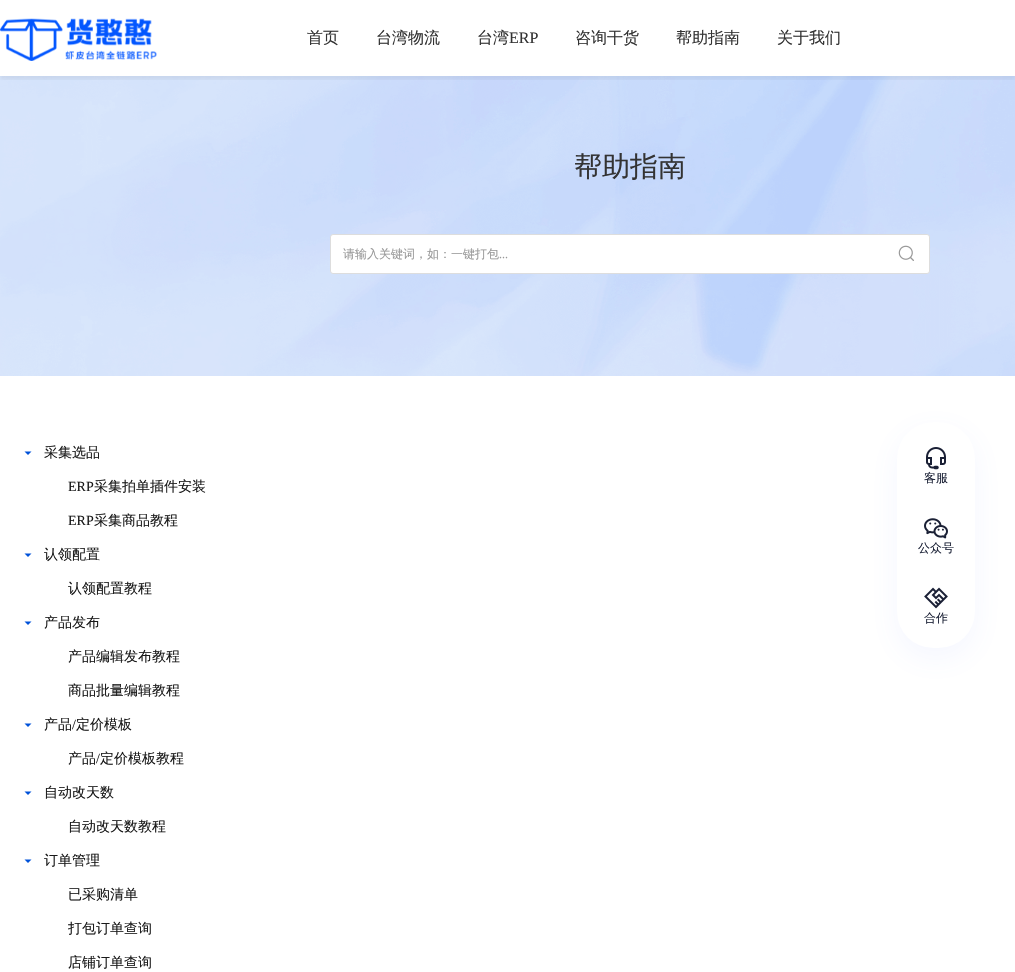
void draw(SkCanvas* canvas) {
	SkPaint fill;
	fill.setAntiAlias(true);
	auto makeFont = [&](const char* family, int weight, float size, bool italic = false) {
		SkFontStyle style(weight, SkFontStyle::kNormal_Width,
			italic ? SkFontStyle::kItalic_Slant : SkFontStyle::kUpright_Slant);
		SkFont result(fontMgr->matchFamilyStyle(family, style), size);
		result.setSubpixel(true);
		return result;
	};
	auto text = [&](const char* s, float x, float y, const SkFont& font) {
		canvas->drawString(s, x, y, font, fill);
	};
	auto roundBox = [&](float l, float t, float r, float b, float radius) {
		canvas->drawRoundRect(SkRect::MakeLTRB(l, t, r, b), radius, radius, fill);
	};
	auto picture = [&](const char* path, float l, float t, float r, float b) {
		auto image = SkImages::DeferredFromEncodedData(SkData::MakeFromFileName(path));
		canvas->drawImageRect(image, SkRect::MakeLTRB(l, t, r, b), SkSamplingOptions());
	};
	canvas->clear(0xFFFFFFFF);
	picture("image1.png", 0, 76, 1015, 376);
	canvas->save();
	canvas->clipRect(SkRect::MakeLTRB(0, 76, 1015, 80));
	fill.setColor(0x0D000000);
	fill.setMaskFilter(SkMaskFilter::MakeBlur(kNormal_SkBlurStyle, 2));
	canvas->drawRect(SkRect::MakeLTRB(0, 4, 1015, 80), fill);
	fill.setMaskFilter(nullptr);
	canvas->restore();
	picture("image0.png", 0, 18, 157, 61);
	fill.setColor(0xFFFFFFFF);
	canvas->drawRoundRect(SkRect::MakeLTRB(330.5f, 234.5f, 929.5f, 273.5f), 2.5f, 2.5f, fill);
	fill.setStyle(SkPaint::kStroke_Style);
	fill.setStrokeWidth(1);
	fill.setColor(0xFFDDDDDD);
	canvas->drawRoundRect(SkRect::MakeLTRB(330.5f, 234.5f, 929.5f, 273.5f), 2.5f, 2.5f, fill);
	picture("image2.png", 898, 245, 914, 261);
	fill.setStyle(SkPaint::kFill_Style);
	fill.setColor(0xFF0052D9);
	canvas->drawPath(SkPathBuilder().moveTo(28, 455).lineTo(31.5f, 451.5f).lineTo(24.5f, 451.5f).close().detach(), fill);
	canvas->drawPath(SkPathBuilder().moveTo(28, 557).lineTo(31.5f, 553.5f).lineTo(24.5f, 553.5f).close().detach(), fill);
	canvas->drawPath(SkPathBuilder().moveTo(28, 625).lineTo(31.5f, 621.5f).lineTo(24.5f, 621.5f).close().detach(), fill);
	canvas->drawPath(SkPathBuilder().moveTo(28, 727).lineTo(31.5f, 723.5f).lineTo(24.5f, 723.5f).close().detach(), fill);
	canvas->drawPath(SkPathBuilder().moveTo(28, 795).lineTo(31.5f, 791.5f).lineTo(24.5f, 791.5f).close().detach(), fill);
	canvas->drawPath(SkPathBuilder().moveTo(28, 863).lineTo(31.5f, 859.5f).lineTo(24.5f, 859.5f).close().detach(), fill);
	fill.setColor(0x126184FF);
	fill.setMaskFilter(SkMaskFilter::MakeBlur(kNormal_SkBlurStyle, 15));
	canvas->drawRoundRect(SkRect::MakeLTRB(897, 432, 975, 658), 36, 36, fill);
	fill.setMaskFilter(nullptr);
	fill.setColor(0xFFFFFFFF);
	roundBox(897, 422, 975, 648, 36);
	picture("image3.png", 926, 447, 946, 470);
	picture("image4.png", 924, 518, 948, 539);
	picture("image5.png", 924, 587, 948, 609);
	auto font1 = makeFont("WenQuanYi Zen Hei", 500, 16);
	fill.setColor(0xFF333333);
	text("首页", 307, 43, font1);
	text("台湾物流", 376, 43, font1);
	text("台湾", 477, 43, font1);
	auto font2 = makeFont("Liberation Serif", 400, 16);
	text("ERP", 509, 43, font2);
	text("咨询干货", 575, 43, font1);
	text("帮助指南", 676, 43, font1);
	text("关于我们", 777, 43, font1);
	auto font3 = makeFont("WenQuanYi Zen Hei", 500, 28);
	text("帮助指南", 574, 176, font3);
	auto font4 = makeFont("WenQuanYi Zen Hei", 500, 12);
	fill.setColor(0xFF999999);
	text("请输入关键词，如：一键打包", 343, 258, font4);
	auto font5 = makeFont("Liberation Serif", 400, 12);
	text("...", 499, 258, font5);
	auto font6 = makeFont("WenQuanYi Zen Hei", 500, 14);
	fill.setColor(0xFF1A1A1A);
	text("采集选品", 44, 457, font6);
	auto font7 = makeFont("Liberation Serif", 400, 14);
	text("ERP", 68, 491, font7);
	text("采集拍单插件安装", 94, 491, font6);
	text("ERP", 68, 525, font7);
	text("采集商品教程", 94, 525, font6);
	text("认领配置", 44, 559, font6);
	text("认领配置教程", 68, 593, font6);
	text("产品发布", 44, 627, font6);
	text("产品编辑发布教程", 68, 661, font6);
	text("商品批量编辑教程", 68, 695, font6);
	text("产品", 44, 729, font6);
	text("/", 72, 729, font7);
	text("定价模板", 76, 729, font6);
	text("产品", 68, 763, font6);
	text("/", 96, 763, font7);
	text("定价模板教程", 100, 763, font6);
	text("自动改天数", 44, 797, font6);
	text("自动改天数教程", 68, 831, font6);
	text("订单管理", 44, 865, font6);
	text("已采购清单", 68, 899, font6);
	text("打包订单查询", 68, 933, font6);
	text("店铺订单查询", 68, 967, font6);
	fill.setColor(0xFF1A2035);
	text("客服", 924, 482, font4);
	text("公众号", 918, 552, font4);
	text("合作", 924, 622, font4);
}
